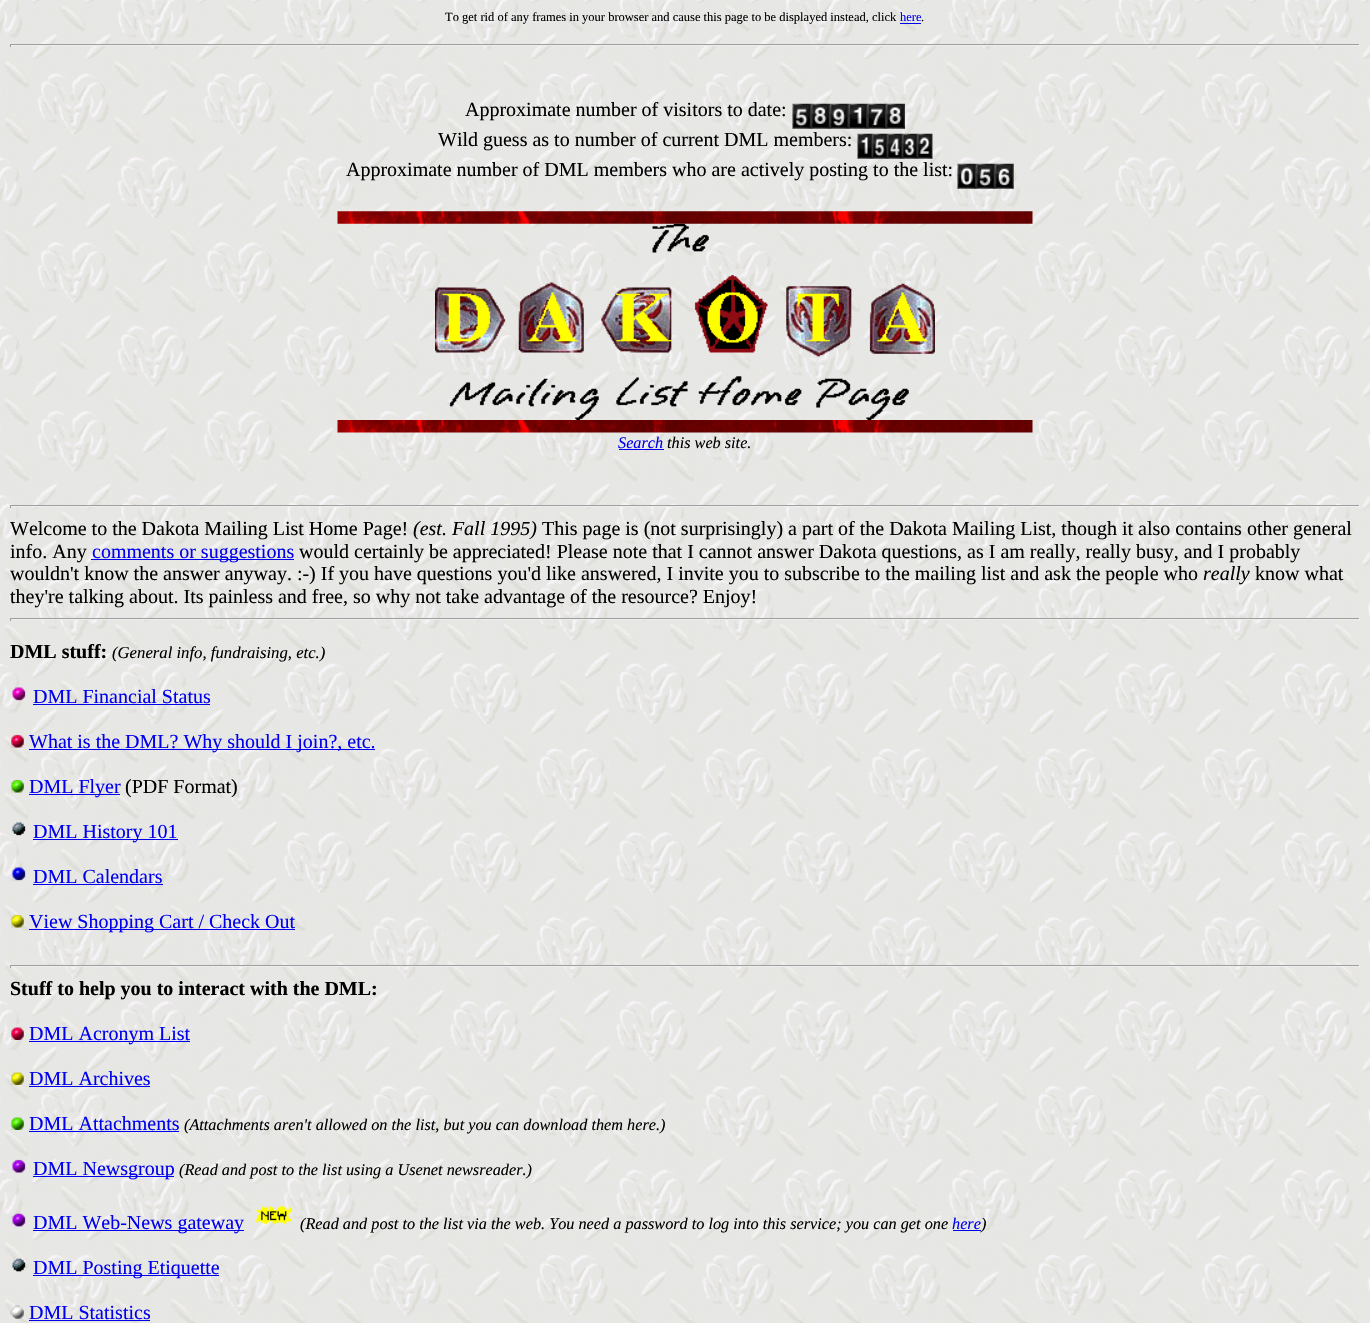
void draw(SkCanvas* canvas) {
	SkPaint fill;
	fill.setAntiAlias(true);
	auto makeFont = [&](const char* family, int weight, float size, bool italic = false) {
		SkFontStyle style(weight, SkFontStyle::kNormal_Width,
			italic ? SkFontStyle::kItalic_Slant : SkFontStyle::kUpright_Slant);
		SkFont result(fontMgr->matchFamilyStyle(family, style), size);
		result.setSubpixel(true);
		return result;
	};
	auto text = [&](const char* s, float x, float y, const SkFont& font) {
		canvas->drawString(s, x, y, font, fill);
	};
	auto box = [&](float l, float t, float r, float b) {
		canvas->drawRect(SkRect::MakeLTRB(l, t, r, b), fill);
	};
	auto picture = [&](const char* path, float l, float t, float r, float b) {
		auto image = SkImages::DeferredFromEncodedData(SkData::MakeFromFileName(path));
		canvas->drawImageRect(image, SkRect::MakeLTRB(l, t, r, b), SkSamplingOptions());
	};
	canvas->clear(0xFFFFFFFF);
	picture("image0.png", 0, 0, 1370, 1323);
	fill.setColor(0xFF0000EE);
	box(900, 23, 921, 24);
	fill.setColor(0xFF9F9F9F);
	box(10, 44, 1360, 45);
	fill.setColor(0xFFEEEEEE);
	box(1359, 44, 1360, 47);
	box(10, 45, 1360, 46);
	fill.setColor(0xFF9F9F9F);
	box(10, 44, 11, 47);
	picture("image1.png", 792, 103, 905, 129);
	picture("image2.png", 857, 133, 933, 159);
	picture("image3.png", 957, 163, 1014, 189);
	picture("image4.png", 337, 211, 1033, 224);
	picture("image5.png", 435, 223, 935, 420);
	picture("image6.png", 337, 420, 1033, 433);
	fill.setColor(0xFF0000EE);
	box(619, 449, 664, 450);
	fill.setColor(0xFF9F9F9F);
	box(10, 505, 1360, 506);
	fill.setColor(0xFFEEEEEE);
	box(1359, 505, 1360, 508);
	box(10, 506, 1360, 507);
	fill.setColor(0xFF9F9F9F);
	box(10, 505, 11, 508);
	fill.setColor(0xFF0000EE);
	box(91, 559, 294, 560);
	fill.setColor(0xFF9F9F9F);
	box(10, 618, 1360, 619);
	fill.setColor(0xFFEEEEEE);
	box(1359, 618, 1360, 621);
	box(10, 619, 1360, 620);
	fill.setColor(0xFF9F9F9F);
	box(10, 618, 11, 621);
	picture("image7.png", 12, 687, 26, 701);
	fill.setColor(0xFF0000EE);
	box(33, 704, 210, 705);
	picture("image8.png", 11, 734, 24, 748);
	box(29, 749, 375, 750);
	picture("image9.png", 11, 779, 24, 793);
	box(29, 794, 120, 795);
	picture("image10.png", 12, 822, 26, 836);
	box(33, 839, 178, 840);
	picture("image11.png", 12, 867, 26, 881);
	box(33, 884, 163, 885);
	picture("image12.png", 11, 914, 24, 928);
	box(29, 929, 295, 930);
	fill.setColor(0xFF9F9F9F);
	box(10, 965, 1360, 966);
	fill.setColor(0xFFEEEEEE);
	box(1359, 965, 1360, 968);
	box(10, 966, 1360, 967);
	fill.setColor(0xFF9F9F9F);
	box(10, 965, 11, 968);
	picture("image13.png", 11, 1027, 24, 1040);
	fill.setColor(0xFF0000EE);
	box(29, 1041, 190, 1042);
	picture("image14.png", 11, 1072, 24, 1085);
	box(29, 1086, 150, 1087);
	picture("image15.png", 11, 1117, 24, 1130);
	box(29, 1131, 179, 1132);
	picture("image16.png", 12, 1159, 26, 1173);
	box(33, 1176, 174, 1177);
	picture("image17.png", 12, 1213, 26, 1227);
	box(33, 1230, 244, 1231);
	picture("image18.png", 256, 1206, 292, 1224);
	box(953, 1230, 981, 1231);
	picture("image19.png", 12, 1258, 26, 1272);
	box(33, 1275, 219, 1276);
	picture("image20.png", 10, 1305, 24, 1319);
	box(29, 1320, 150, 1321);
	auto font1 = makeFont("Liberation Serif", 400, 12.5f);
	fill.setColor(0xFF000000);
	text("To get rid of any frames in your browser and cause this page to be displayed instead, click", 445, 21, font1);
	fill.setColor(0xFF0000EE);
	text("here", 900, 21, font1);
	fill.setColor(0xFF000000);
	text(".", 921, 21, font1);
	auto font2 = makeFont("Liberation Serif", 400, 20);
	text("Approximate number of visitors to date:", 465, 116, font2);
	text("Wild guess as to number of current DML members:", 438, 146, font2);
	text("Approximate number of DML members who are actively posting to the list:", 346, 176, font2);
	auto font3 = makeFont("Liberation Serif", 400, 16.25f, true);
	fill.setColor(0xFF0000EE);
	text("Search", 618, 448, font3);
	fill.setColor(0xFF000000);
	text("this web site.", 667, 448, font3);
	text("Welcome to the Dakota Mailing List Home Page!", 10, 535, font2);
	auto font4 = makeFont("Liberation Serif", 400, 20, true);
	text("(est. Fall 1995)", 413, 535, font4);
	text("This page is (not surprisingly) a part of the Dakota Mailing List, though it also contains other general", 542, 535, font2);
	text("info. Any", 10, 558, font2);
	fill.setColor(0xFF0000EE);
	text("comments or suggestions", 92, 558, font2);
	fill.setColor(0xFF000000);
	text("would certainly be appreciated! Please note that I cannot answer Dakota questions, as I am really, really busy, and I probably", 299, 558, font2);
	text("wouldn't know the answer anyway. :-) If you have questions you'd like answered, I invite you to subscribe to the mailing list and ask the people who", 10, 580, font2);
	text("really", 1203, 580, font4);
	text("know what", 1255, 580, font2);
	text("they're talking about. Its painless and free, so why not take advantage of the resource? Enjoy!", 10, 603, font2);
	auto font5 = makeFont("Liberation Serif", 700, 20);
	text("DML stuff:", 10, 658, font5);
	auto font6 = makeFont("Liberation Serif", 400, 16.7f, true);
	text("(General info, fundraising, etc.)", 112, 658, font6);
	fill.setColor(0xFF0000EE);
	text("DML Financial Status", 33, 703, font2);
	text("What is the DML? Why should I join?, etc.", 29, 748, font2);
	text("DML Flyer", 29, 793, font2);
	fill.setColor(0xFF000000);
	text("(PDF Format)", 125, 793, font2);
	fill.setColor(0xFF0000EE);
	text("DML History 101", 33, 838, font2);
	text("DML Calendars", 33, 883, font2);
	text("View Shopping Cart / Check Out", 29, 928, font2);
	fill.setColor(0xFF000000);
	text("Stuff to help you to interact with the DML:", 10, 995, font5);
	fill.setColor(0xFF0000EE);
	text("DML Acronym List", 29, 1040, font2);
	text("DML Archives", 29, 1085, font2);
	text("DML Attachments", 29, 1130, font2);
	fill.setColor(0xFF000000);
	text("(Attachments aren't allowed on the list, but you can download them here.)", 184, 1130, font3);
	fill.setColor(0xFF0000EE);
	text("DML Newsgroup", 33, 1175, font2);
	fill.setColor(0xFF000000);
	text("(Read and post to the list using a Usenet newsreader.)", 179, 1175, font3);
	fill.setColor(0xFF0000EE);
	text("DML Web-News gateway", 33, 1229, font2);
	fill.setColor(0xFF000000);
	text("(Read and post to the list via the web. You need a password to log into this service; you can get one", 300, 1229, font3);
	fill.setColor(0xFF0000EE);
	text("here", 952, 1229, font3);
	fill.setColor(0xFF000000);
	text(")", 981, 1229, font3);
	fill.setColor(0xFF0000EE);
	text("DML Posting Etiquette", 33, 1274, font2);
	text("DML Statistics", 29, 1319, font2);
}
